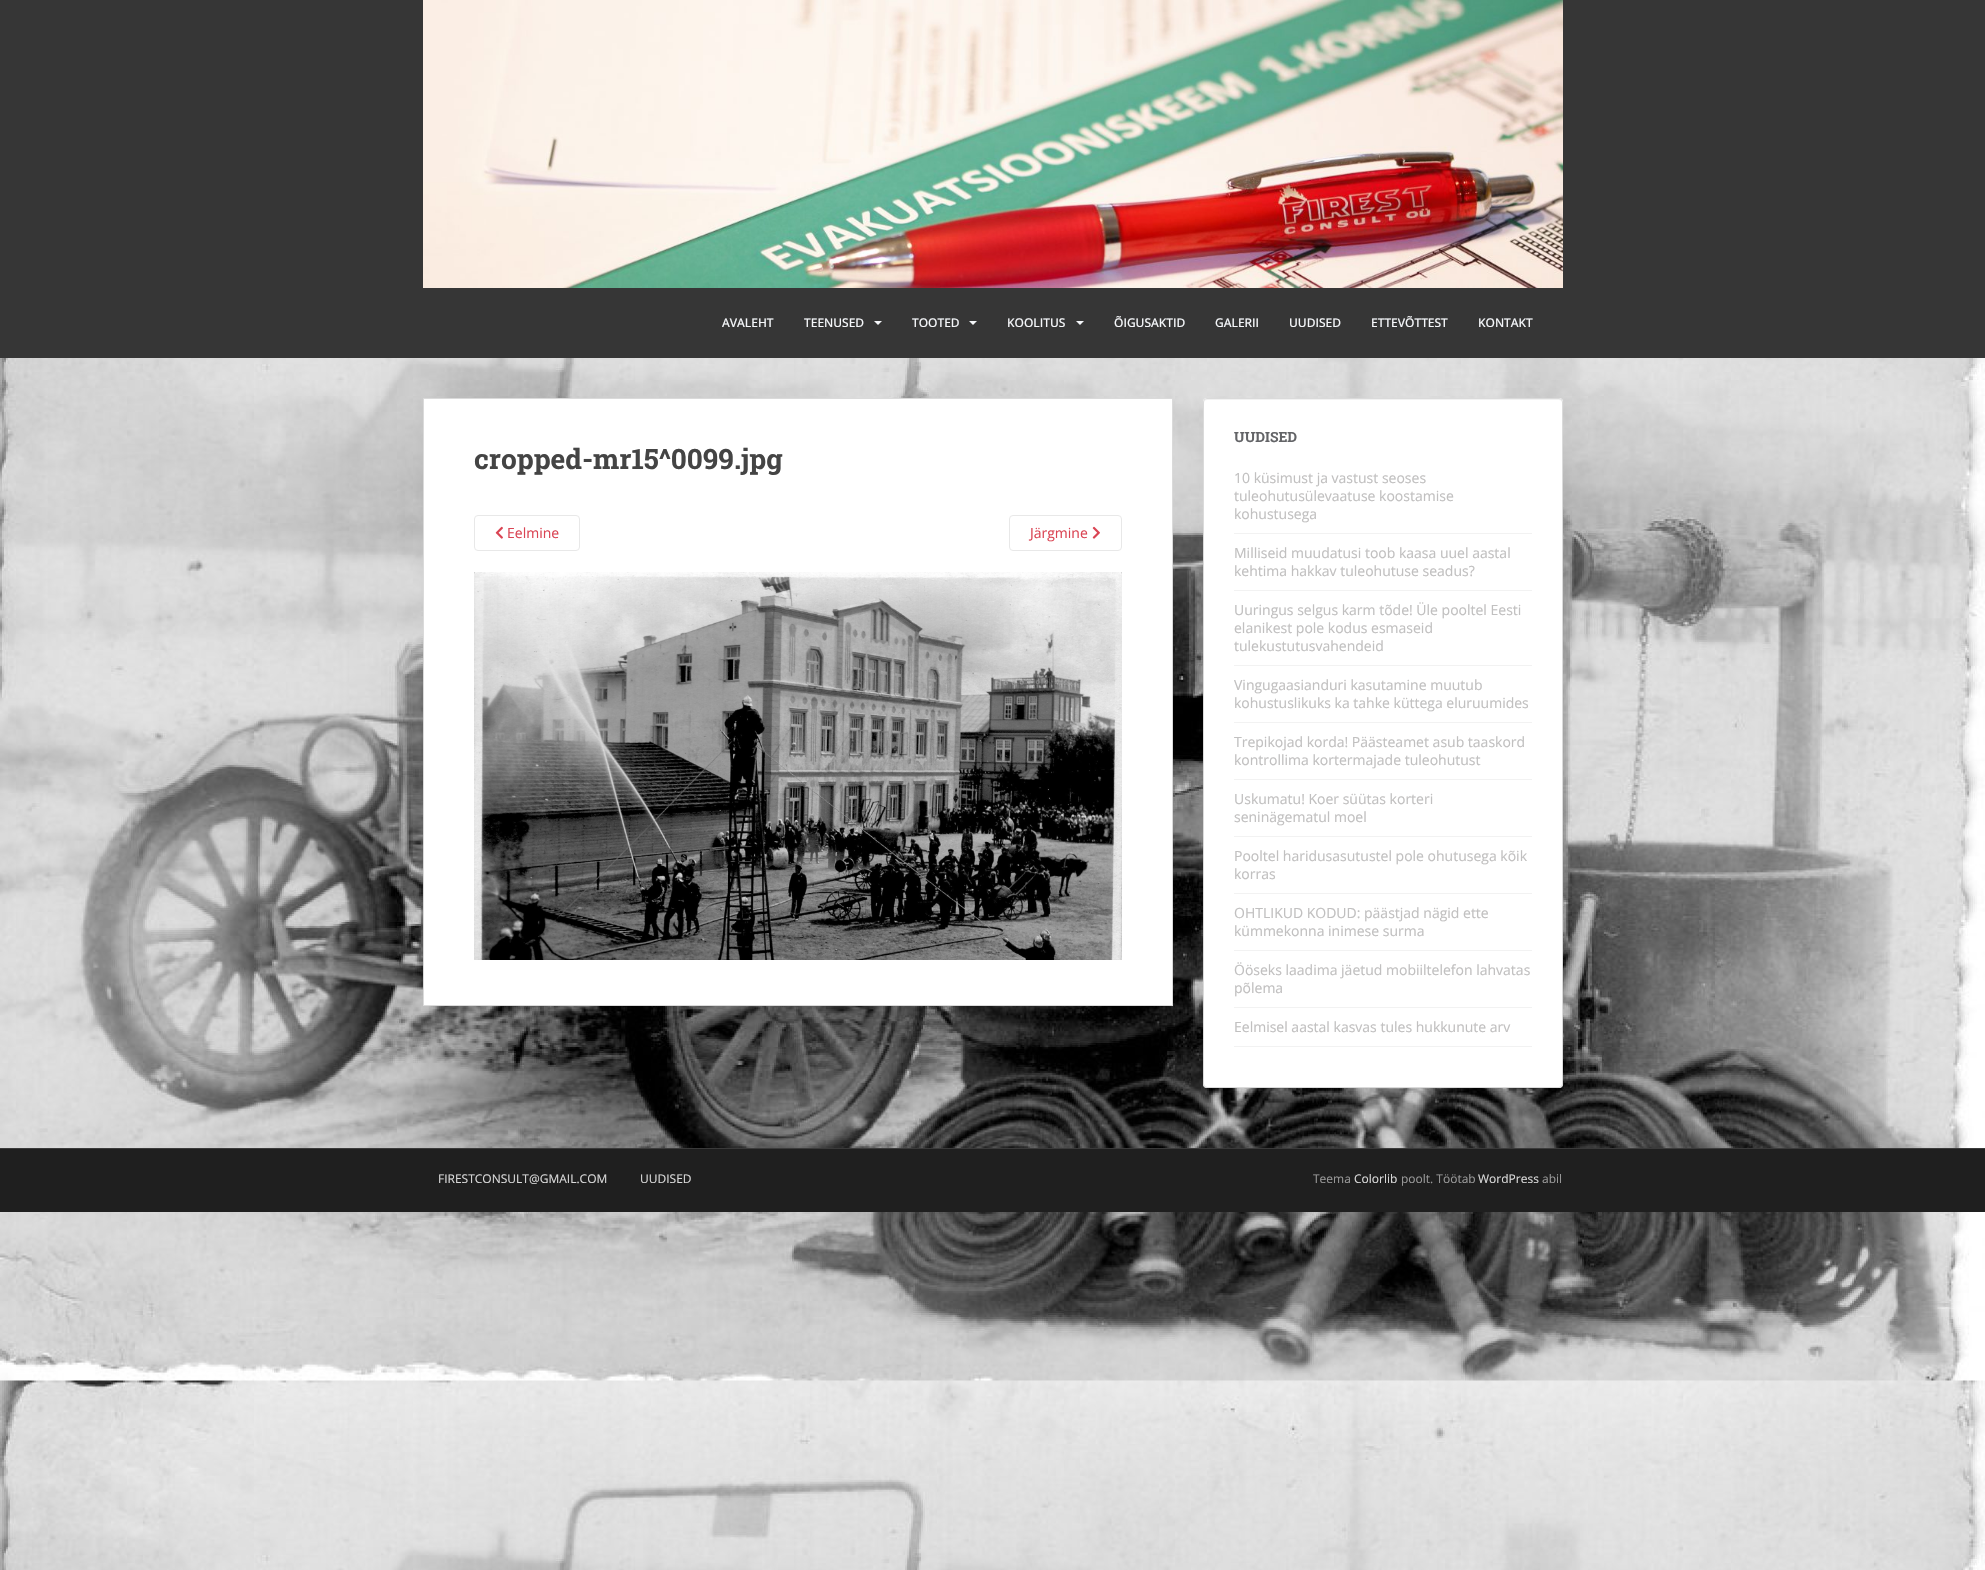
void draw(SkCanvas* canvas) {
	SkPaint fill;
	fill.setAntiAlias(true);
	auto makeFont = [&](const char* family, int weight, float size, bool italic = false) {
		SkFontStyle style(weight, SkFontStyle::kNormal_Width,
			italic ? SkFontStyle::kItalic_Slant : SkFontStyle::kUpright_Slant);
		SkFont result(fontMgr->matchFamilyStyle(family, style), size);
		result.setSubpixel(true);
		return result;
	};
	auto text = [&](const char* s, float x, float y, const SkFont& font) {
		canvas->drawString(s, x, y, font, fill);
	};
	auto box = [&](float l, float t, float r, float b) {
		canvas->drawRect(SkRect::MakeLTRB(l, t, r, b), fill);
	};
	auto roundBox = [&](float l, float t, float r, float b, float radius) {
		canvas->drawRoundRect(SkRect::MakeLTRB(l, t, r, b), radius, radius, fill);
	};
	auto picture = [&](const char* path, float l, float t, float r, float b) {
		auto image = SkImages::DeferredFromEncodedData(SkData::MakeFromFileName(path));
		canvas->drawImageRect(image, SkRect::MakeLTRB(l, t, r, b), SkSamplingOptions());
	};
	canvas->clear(0xFFFFFFFF);
	picture("image0.png", 0, 358, 1985, 1570);
	fill.setColor(0xFF363636);
	box(0, 0, 1985, 358);
	picture("image1.png", 423, 0, 1563, 288);
	fill.setColor(0xFFF5F7FA);
	canvas->drawPath(SkPathBuilder().moveTo(874, 321).lineTo(882, 321).lineTo(878, 325).close().detach(), fill);
	canvas->drawPath(SkPathBuilder().moveTo(969, 321).lineTo(977, 321).lineTo(973, 325).close().detach(), fill);
	canvas->drawPath(SkPathBuilder().moveTo(1076, 321).lineTo(1084, 321).lineTo(1080, 325).close().detach(), fill);
	fill.setColor(0xFFFFFFFF);
	canvas->drawRect(SkRect::MakeLTRB(423.5f, 398.5f, 1172.5f, 1005.5f), fill);
	fill.setStyle(SkPaint::kStroke_Style);
	fill.setStrokeWidth(1);
	fill.setColor(0xFFDADADA);
	canvas->drawRect(SkRect::MakeLTRB(423.5f, 398.5f, 1172.5f, 1005.5f), fill);
	fill.setColor(0xFFE8E8E8);
	canvas->drawRoundRect(SkRect::MakeLTRB(474.5f, 515.5f, 579.5f, 550.5f), 3.5f, 3.5f, fill);
	picture("image2.png", 495, 526, 503, 539);
	canvas->drawRoundRect(SkRect::MakeLTRB(1009.5f, 515.5f, 1121.5f, 550.5f), 3.5f, 3.5f, fill);
	picture("image3.png", 1092, 526, 1100, 539);
	picture("image4.png", 474, 572, 1122, 960);
	fill.setStyle(SkPaint::kFill_Style);
	fill.setColor(0xFFFFFFFF);
	roundBox(1203, 398, 1563, 1088, 4);
	fill.setColor(0xFFF2F2F2);
	canvas->drawPath(SkPathBuilder().moveTo(1207, 400).lineTo(1559, 400).cubicTo(1561, 400, 1562, 401, 1562, 403).cubicTo(1562, 401, 1561, 399, 1559, 399).lineTo(1207, 399).lineTo(1205, 400).lineTo(1204, 403).cubicTo(1204, 401, 1205, 400, 1207, 400).close().detach(), fill);
	fill.setStyle(SkPaint::kStroke_Style);
	fill.setColor(0xFFDADADA);
	canvas->drawRoundRect(SkRect::MakeLTRB(1203.5f, 398.5f, 1562.5f, 1087.5f), 3.5f, 3.5f, fill);
	fill.setStyle(SkPaint::kFill_Style);
	fill.setColor(0xFFF2F2F2);
	box(1234, 533, 1532, 534);
	box(1234, 590, 1532, 591);
	box(1234, 665, 1532, 666);
	box(1234, 722, 1532, 723);
	box(1234, 779, 1532, 780);
	box(1234, 836, 1532, 837);
	box(1234, 893, 1532, 894);
	box(1234, 950, 1532, 951);
	box(1234, 1007, 1532, 1008);
	box(1234, 1046, 1532, 1047);
	fill.setColor(0xFF1F1F1F);
	box(0, 1149, 1985, 1212);
	fill.setColor(0xFF3A3A3A);
	box(0, 1148, 1985, 1149);
	auto font1 = makeFont("Open Sans", 500, 12);
	fill.setColor(0xFFF5F7FA);
	text("AVALEHT", 722, 327, font1);
	text("TEENUSED", 804, 327, font1);
	text("TOOTED", 912, 327, font1);
	text("KOOLITUS", 1007, 327, font1);
	text("ÕIGUSAKTID", 1114, 327, font1);
	text("GALERII", 1215, 327, font1);
	text("UUDISED", 1289, 327, font1);
	text("ETTEVÕTTEST", 1371, 327, font1);
	text("KONTAKT", 1478, 327, font1);
	auto font2 = makeFont("Roboto Slab", 700, 28);
	fill.setColor(0xFF444444);
	text("cropped-mr15^0099.jpg", 474, 469, font2);
	auto font3 = makeFont("Open Sans", 400, 14);
	fill.setColor(0xFFDA4453);
	text("Eelmine", 507, 538, font3);
	text("Järgmine", 1030, 538, font3);
	auto font4 = makeFont("Roboto Slab", 700, 14);
	fill.setColor(0xFF636467);
	text("UUDISED", 1234, 442, font4);
	fill.setColor(0xFFC1C0C0);
	text("10 küsimust ja vastust seoses", 1234, 483, font3);
	text("tuleohutusülevaatuse koostamise", 1234, 501, font3);
	text("kohustusega", 1234, 519, font3);
	text("Milliseid muudatusi toob kaasa uuel aastal", 1234, 558, font3);
	text("kehtima hakkav tuleohutuse seadus?", 1234, 576, font3);
	text("Uuringus selgus karm tõde! Üle pooltel Eesti", 1234, 615, font3);
	text("elanikest pole kodus esmaseid", 1234, 633, font3);
	text("tulekustutusvahendeid", 1234, 651, font3);
	text("Vingugaasianduri kasutamine muutub", 1234, 690, font3);
	text("kohustuslikuks ka tahke küttega eluruumides", 1234, 708, font3);
	text("Trepikojad korda! Päästeamet asub taaskord", 1234, 747, font3);
	text("kontrollima kortermajade tuleohutust", 1234, 765, font3);
	text("Uskumatu! Koer süütas korteri", 1234, 804, font3);
	text("seninägematul moel", 1234, 822, font3);
	text("Pooltel haridusasutustel pole ohutusega kõik", 1234, 861, font3);
	text("korras", 1234, 879, font3);
	text("OHTLIKUD KODUD: päästjad nägid ette", 1234, 918, font3);
	text("kümmekonna inimese surma", 1234, 936, font3);
	text("Ööseks laadima jäetud mobiiltelefon lahvatas", 1234, 975, font3);
	text("põlema", 1234, 993, font3);
	text("Eelmisel aastal kasvas tules hukkunute arv", 1234, 1032, font3);
	auto font5 = makeFont("Open Sans", 400, 12);
	fill.setColor(0xFFDADADA);
	text("FIRESTCONSULT@GMAIL.COM", 438, 1183, font5);
	text("UUDISED", 640, 1183, font5);
	fill.setColor(0xFF999999);
	text("Teema", 1313, 1183, font5);
	fill.setColor(0xFFDADADA);
	text("Colorlib", 1354, 1183, font5);
	fill.setColor(0xFF999999);
	text("poolt. Töötab", 1401, 1183, font5);
	fill.setColor(0xFFDADADA);
	text("WordPress", 1478, 1183, font5);
	fill.setColor(0xFF999999);
	text("abil", 1542, 1183, font5);
}
